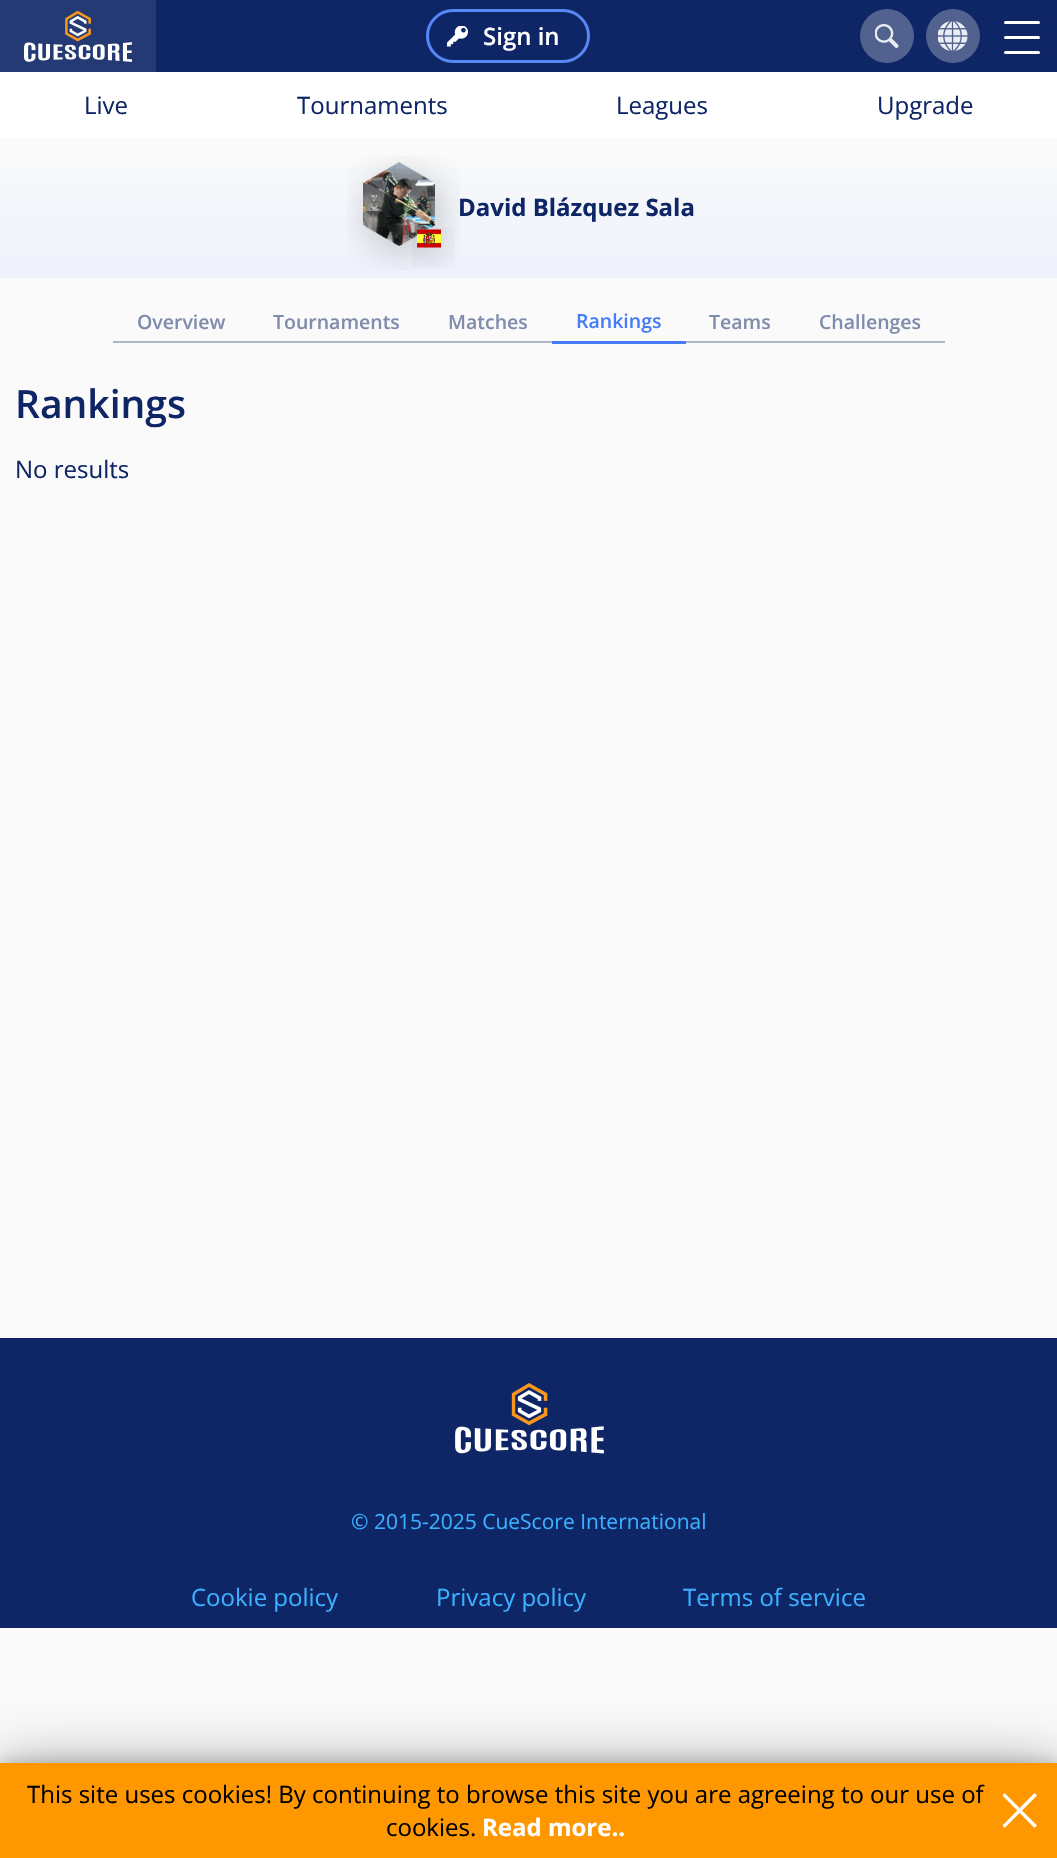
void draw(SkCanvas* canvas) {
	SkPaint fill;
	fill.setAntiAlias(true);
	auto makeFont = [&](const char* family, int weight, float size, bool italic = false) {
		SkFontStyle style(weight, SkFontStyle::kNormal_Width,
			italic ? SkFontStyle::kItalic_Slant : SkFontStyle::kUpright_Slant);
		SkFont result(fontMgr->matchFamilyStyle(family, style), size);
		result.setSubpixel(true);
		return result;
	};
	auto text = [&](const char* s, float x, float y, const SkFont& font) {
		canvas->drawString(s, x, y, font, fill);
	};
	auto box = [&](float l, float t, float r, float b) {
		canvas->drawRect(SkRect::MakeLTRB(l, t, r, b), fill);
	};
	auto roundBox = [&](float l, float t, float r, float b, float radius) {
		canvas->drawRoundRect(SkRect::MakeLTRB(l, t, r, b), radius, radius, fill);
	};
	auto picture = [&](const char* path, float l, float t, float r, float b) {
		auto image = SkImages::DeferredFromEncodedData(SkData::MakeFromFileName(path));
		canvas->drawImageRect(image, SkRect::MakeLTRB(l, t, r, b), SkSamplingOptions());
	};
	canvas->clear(0xFFFAFAFA);
	fill.setColor(0xFF0E2666);
	box(156, 0, 1057, 72);
	fill.setColor(0xFF243A74);
	box(0, 0, 156, 72);
	picture("image0.png", 24, 11, 132, 62);
	picture("image1.png", 447, 26, 468, 47);
	fill.setStyle(SkPaint::kStroke_Style);
	fill.setStrokeWidth(3);
	fill.setColor(0xFF5788F6);
	canvas->drawRoundRect(SkRect::MakeLTRB(427.5f, 10.5f, 588.5f, 61.5f), 25.5f, 25.5f, fill);
	fill.setStyle(SkPaint::kFill_Style);
	fill.setColor(0xFF51628F);
	canvas->drawCircle(887, 36, 27, fill);
	picture("image2.png", 875, 24, 899, 48);
	canvas->drawCircle(953, 36, 27, fill);
	picture("image3.png", 938, 21, 968, 51);
	fill.setColor(0xFFFFFFFF);
	roundBox(1004, 36, 1040, 39, 1.5f);
	roundBox(1004, 21, 1040, 24, 1.5f);
	roundBox(1004, 51, 1040, 54, 1.5f);
	box(0, 72, 1057, 138);
	{
		const SkColor colors[] = {0xFFFAFAFB, 0xFFEEF2FB};
		const float stops[] = {0, 1};
		const SkPoint ends[] = {{529, 138}, {529, 278}};
		fill.setShader(SkGradientShader::MakeLinear(ends, colors, stops, 2, SkTileMode::kClamp));
		fill.setAlpha(255);
	}
	box(0, 167, 1057, 278);
	picture("image4.png", 347, 156, 460, 270);
	picture("image5.png", 412, 227, 455, 268);
	fill.setShader(nullptr);
	fill.setColor(0xFFAEB5C9);
	box(113, 341, 552, 343);
	fill.setColor(0xFF467DF7);
	box(552, 341, 686, 344);
	fill.setColor(0xFFAEB5C9);
	box(686, 341, 945, 343);
	fill.setColor(0x38000000);
	fill.setMaskFilter(SkMaskFilter::MakeBlur(kNormal_SkBlurStyle, 9));
	canvas->drawRect(SkRect::MakeLTRB(0, 1763, 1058, 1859), fill);
	fill.setMaskFilter(nullptr);
	fill.setColor(0x4D000000);
	fill.setMaskFilter(SkMaskFilter::MakeBlur(kNormal_SkBlurStyle, 28.5f));
	canvas->drawRect(SkRect::MakeLTRB(0, 1763, 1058, 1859), fill);
	fill.setMaskFilter(nullptr);
	fill.setColor(0xFFFF9800);
	box(0, 1763, 1057, 1858);
	fill.setColor(0xFFFFFFFF);
	canvas->drawPath(SkPathBuilder().moveTo(1004.5f, 1793).lineTo(1037, 1825.5f).lineTo(1034.5f, 1828).lineTo(1002.5f, 1795.5f).close().detach(), fill);
	canvas->drawPath(SkPathBuilder().moveTo(1002.5f, 1825.5f).lineTo(1034.5f, 1793).lineTo(1037, 1795.5f).lineTo(1004.5f, 1828).close().detach(), fill);
	fill.setColor(0xFF0E2666);
	box(0, 1338, 1057, 1628);
	picture("image6.png", 455, 1383, 604, 1454);
	auto font1 = makeFont("Open Sans", 600, 24);
	fill.setColor(0xFFFFFFFF);
	text("Sign in", 483, 45, font1);
	auto font2 = makeFont("Open Sans", 400, 24);
	fill.setColor(0xFF0E2666);
	text("Live", 84, 114, font2);
	text("Tournaments", 297, 114, font2);
	text("Leagues", 616, 114, font2);
	text("Upgrade", 877, 114, font2);
	auto font3 = makeFont("Open Sans", 700, 24);
	text("David Blázquez Sala", 458, 216, font3);
	auto font4 = makeFont("Open Sans", 600, 19.5f);
	fill.setColor(0xFF808CAC);
	text("Overview", 137, 329, font4);
	text("Tournaments", 273, 329, font4);
	text("Matches", 448, 329, font4);
	fill.setColor(0xFF467DF7);
	text("Rankings", 576, 328, font4);
	fill.setColor(0xFF808CAC);
	text("Teams", 709, 329, font4);
	text("Challenges", 819, 329, font4);
	auto font5 = makeFont("Open Sans", 600, 39);
	fill.setColor(0xFF0E2666);
	text("Rankings", 15, 418, font5);
	text("No results", 15, 478, font2);
	fill.setColor(0xFF000000);
	text("This site uses cookies! By continuing to browse this site you are agreeing to our use of", 27, 1803, font2);
	text("cookies.", 386, 1836, font2);
	fill.setColor(0xFFFFFFFF);
	text("Read more..", 482, 1836, font3);
	auto font6 = makeFont("Open Sans", 400, 21);
	fill.setColor(0xFF3BB0FF);
	text("© 2015-2025 CueScore International", 351, 1529, font6);
	text("Cookie policy", 191, 1606, font2);
	text("Privacy policy", 436, 1606, font2);
	text("Terms of service", 683, 1606, font2);
}
